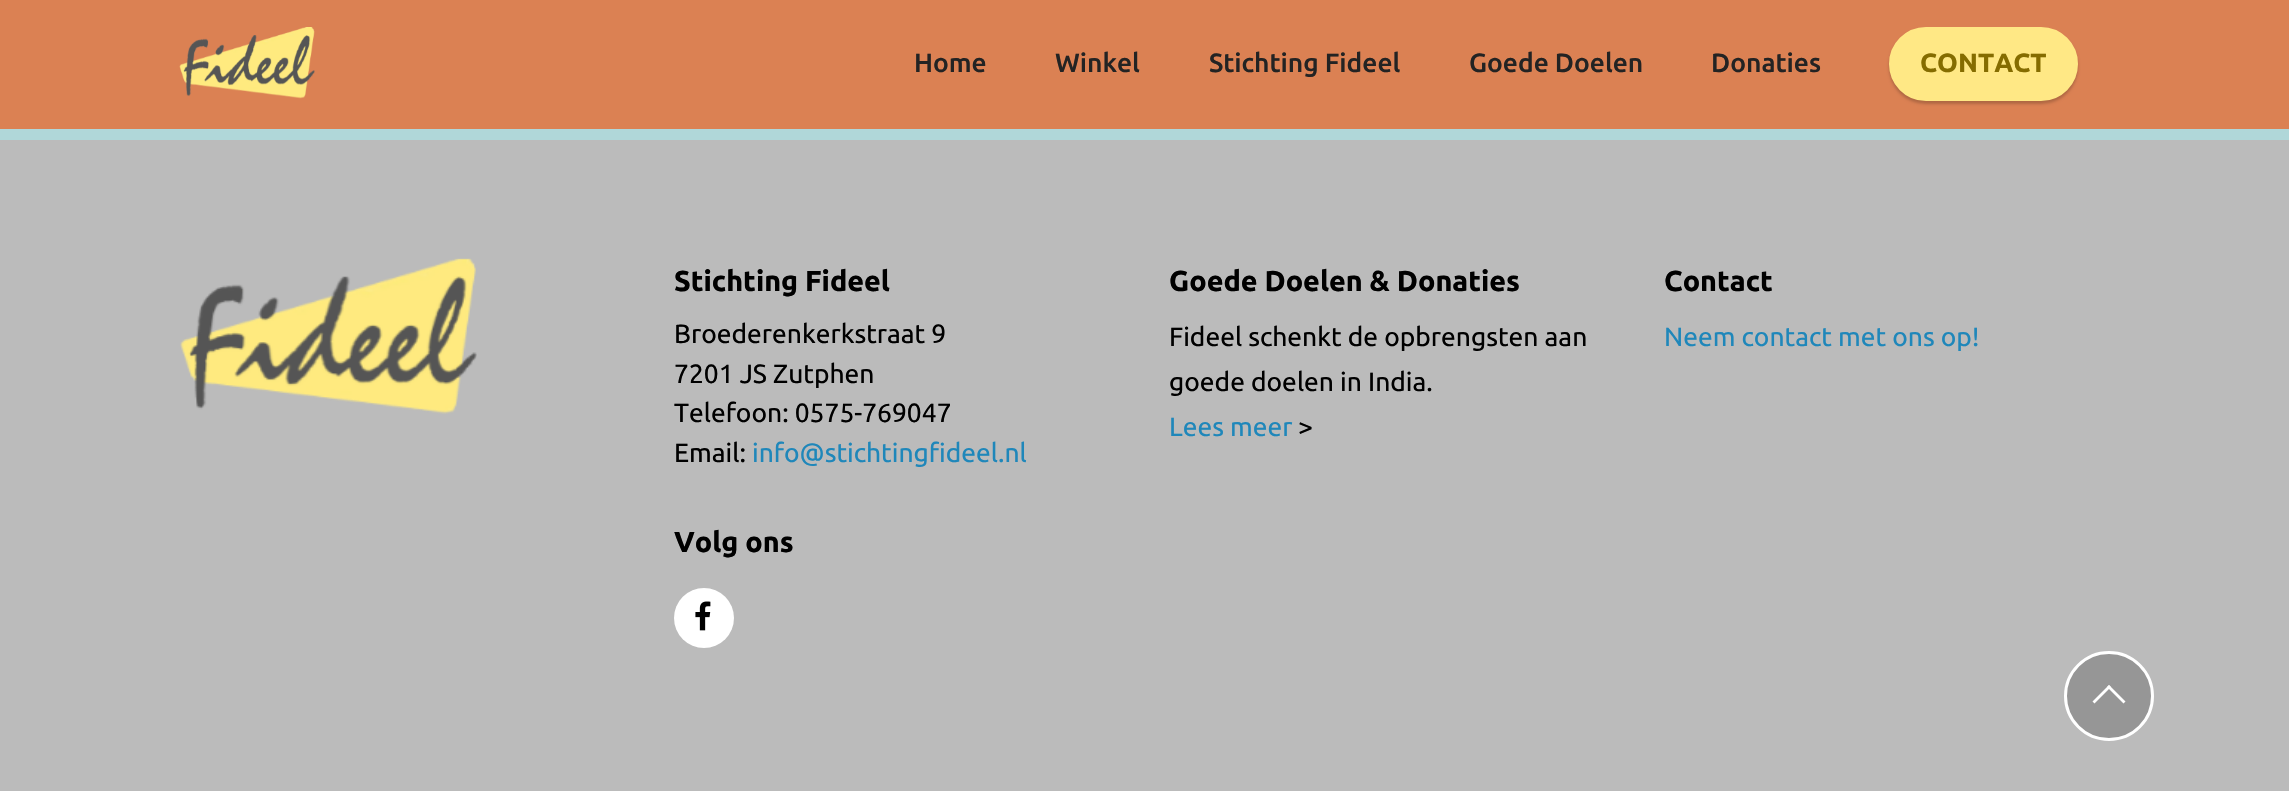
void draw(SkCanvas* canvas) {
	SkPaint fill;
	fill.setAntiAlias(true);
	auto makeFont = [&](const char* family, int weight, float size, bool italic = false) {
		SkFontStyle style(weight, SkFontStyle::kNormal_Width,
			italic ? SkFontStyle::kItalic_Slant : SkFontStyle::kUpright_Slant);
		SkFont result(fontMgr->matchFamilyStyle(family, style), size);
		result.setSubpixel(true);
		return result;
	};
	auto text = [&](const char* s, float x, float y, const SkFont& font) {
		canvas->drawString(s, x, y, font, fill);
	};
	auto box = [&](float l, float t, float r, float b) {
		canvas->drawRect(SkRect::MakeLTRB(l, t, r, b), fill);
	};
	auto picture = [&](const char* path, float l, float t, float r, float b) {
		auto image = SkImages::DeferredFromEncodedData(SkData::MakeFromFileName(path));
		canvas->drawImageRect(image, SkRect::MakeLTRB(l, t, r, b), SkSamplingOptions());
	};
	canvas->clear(0xFFB0D7D9);
	fill.setColor(0xFFDB8153);
	box(0, 0, 2289, 129);
	picture("image0.png", 179, 27, 315, 99);
	fill.setColor(0x33000000);
	fill.setMaskFilter(SkMaskFilter::MakeBlur(kNormal_SkBlurStyle, 1.5f));
	canvas->drawRoundRect(SkRect::MakeLTRB(1889, 30, 2078, 104), 37, 37, fill);
	fill.setMaskFilter(nullptr);
	fill.setColor(0xFFFFE885);
	canvas->drawRoundRect(SkRect::MakeLTRB(1890.5f, 28.5f, 2076.5f, 99.5f), 35.5f, 35.5f, fill);
	fill.setStyle(SkPaint::kStroke_Style);
	fill.setStrokeWidth(3);
	canvas->drawRoundRect(SkRect::MakeLTRB(1890.5f, 28.5f, 2076.5f, 99.5f), 35.5f, 35.5f, fill);
	fill.setStyle(SkPaint::kFill_Style);
	fill.setColor(0xFFBBBBBB);
	box(0, 140, 2289, 791);
	picture("image1.png", 180, 258, 477, 414);
	fill.setColor(0xFFFFFFFF);
	canvas->drawCircle(704, 618, 30, fill);
	picture("image2.png", 695, 601, 711, 631);
	fill.setColor(0xFF969696);
	canvas->drawCircle(2109, 696, 43.5f, fill);
	fill.setStyle(SkPaint::kStroke_Style);
	fill.setColor(0xFFFFFFFF);
	canvas->drawCircle(2109, 696, 43.5f, fill);
	fill.setStyle(SkPaint::kFill_Style);
	canvas->drawPath(SkPathBuilder().moveTo(2111, 687).lineTo(2094.5f, 703.5f).lineTo(2092.5f, 701.5f).lineTo(2109, 685).close().detach(), fill);
	canvas->drawPath(SkPathBuilder().moveTo(2125.5f, 701.5f).lineTo(2123.5f, 703.5f).lineTo(2107, 687).lineTo(2109, 685).close().detach(), fill);
	auto font1 = makeFont("Ubuntu", 500, 26.4f);
	fill.setColor(0xFF232323);
	text("Home", 914, 72, font1);
	text("Winkel", 1055, 72, font1);
	text("Stichting Fideel", 1209, 72, font1);
	text("Goede Doelen", 1469, 72, font1);
	text("Donaties", 1711, 72, font1);
	auto font2 = makeFont("Ubuntu", 700, 26.4f);
	fill.setColor(0xFF856C00);
	text("CONTACT", 1920, 72, font2);
	auto font3 = makeFont("Ubuntu", 700, 28.75f);
	fill.setColor(0xFF000000);
	text("Stichting Fideel", 674, 291, font3);
	auto font4 = makeFont("Ubuntu", 400, 26.4f);
	text("Broederenkerkstraat 9", 674, 343, font4);
	text("7201 JS Zutphen", 674, 383, font4);
	text("Telefoon: 0575-769047", 674, 422, font4);
	text("Email:", 674, 462, font4);
	fill.setColor(0xFF1F87BA);
	text("info@stichtingfideel.nl", 752, 462, font4);
	fill.setColor(0xFF000000);
	text("Volg ons", 674, 552, font3);
	text("Goede Doelen & Donaties", 1169, 291, font3);
	text("Fideel schenkt de opbrengsten aan", 1169, 346, font4);
	text("goede doelen in India.", 1169, 391, font4);
	fill.setColor(0xFF1F87BA);
	text("Lees meer", 1169, 436, font4);
	fill.setColor(0xFF000000);
	text(">", 1298, 436, font4);
	text("Contact", 1664, 291, font3);
	fill.setColor(0xFF1F87BA);
	text("Neem contact met ons op!", 1664, 346, font4);
}
